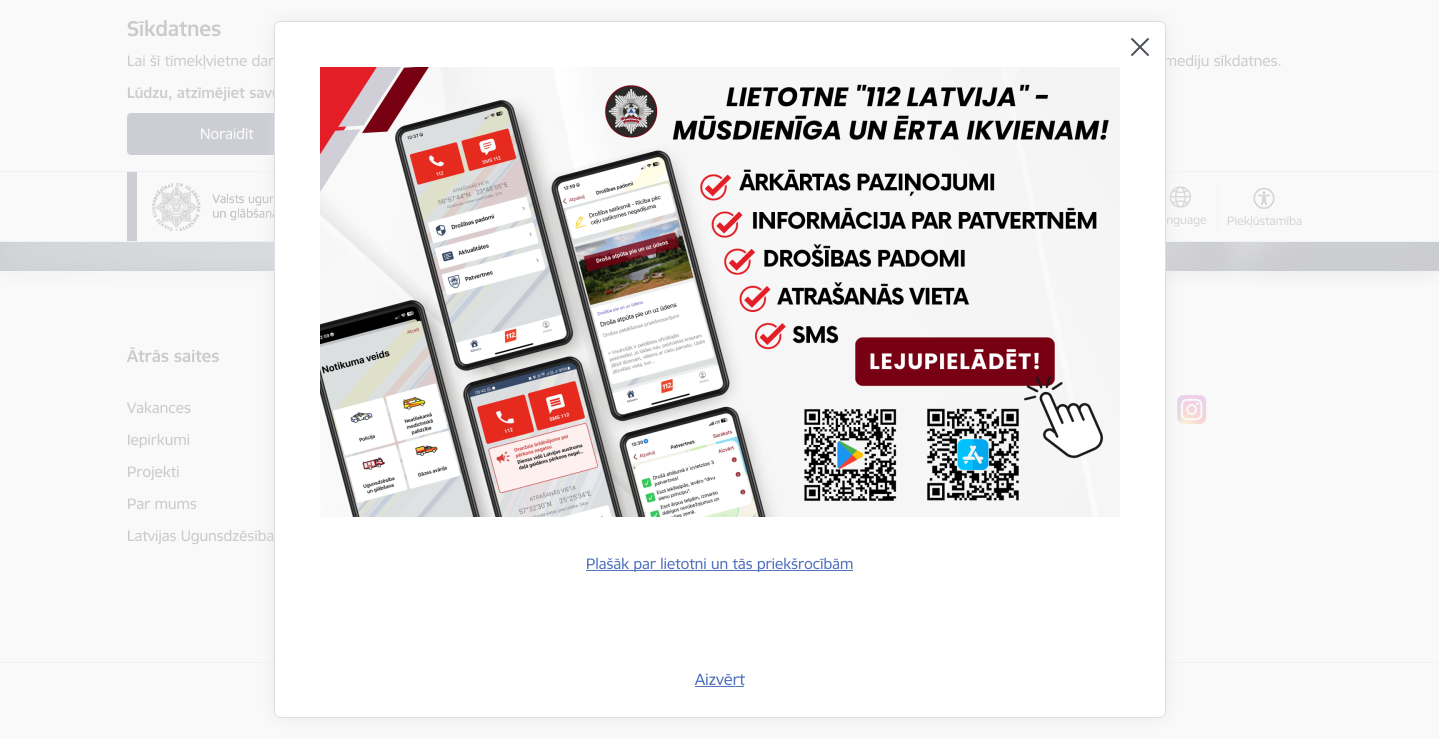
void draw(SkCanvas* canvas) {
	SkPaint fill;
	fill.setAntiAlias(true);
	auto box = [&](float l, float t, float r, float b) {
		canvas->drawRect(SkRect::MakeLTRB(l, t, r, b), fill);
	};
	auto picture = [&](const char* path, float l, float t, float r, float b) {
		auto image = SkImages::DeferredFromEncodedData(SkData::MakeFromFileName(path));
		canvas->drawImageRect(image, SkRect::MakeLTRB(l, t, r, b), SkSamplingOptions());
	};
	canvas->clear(0xFFF9F9F9);
	fill.setColor(0xFFF1F2F3);
	box(0, 171, 1439, 172);
	picture("image5.png", 128, 54, 1281, 70);
	picture("image6.png", 127, 86, 274, 101);
	fill.setColor(0xFFCCCED3);
	canvas->drawRoundRect(SkRect::MakeLTRB(127.5f, 113.5f, 326.5f, 154.5f), 3.5f, 3.5f, fill);
	fill.setStyle(SkPaint::kStroke_Style);
	fill.setStrokeWidth(1);
	canvas->drawRoundRect(SkRect::MakeLTRB(127.5f, 113.5f, 326.5f, 154.5f), 3.5f, 3.5f, fill);
	picture("image7.png", 201, 127, 254, 140);
	fill.setStyle(SkPaint::kFill_Style);
	fill.setColor(0xFFF1F2F3);
	box(0, 241, 1439, 242);
	picture("image8.png", 152, 183, 274, 231);
	picture("image9.png", 1169, 186, 1191, 208);
	picture("image10.png", 1167, 217, 1207, 227);
	fill.setColor(0xFFCCCED3);
	box(0, 242, 1439, 271);
	picture("image13.png", 0, 242, 1439, 286);
	picture("image19.png", 128, 529, 274, 545);
	picture("image20.png", 1177, 395, 1207, 424);
	fill.setColor(0xFFF1F2F3);
	box(0, 662, 1439, 663);
	fill.setColor(0x80D8DADD);
	fill.setMaskFilter(SkMaskFilter::MakeBlur(kNormal_SkBlurStyle, 7.5f));
	canvas->drawRoundRect(SkRect::MakeLTRB(274, 21, 1166, 718), 6, 6, fill);
	fill.setMaskFilter(nullptr);
	fill.setColor(0xFFFFFFFF);
	canvas->drawRoundRect(SkRect::MakeLTRB(274.5f, 21.5f, 1165.5f, 717.5f), 5.5f, 5.5f, fill);
	fill.setStyle(SkPaint::kStroke_Style);
	fill.setColor(0xFFDBDEE4);
	canvas->drawRoundRect(SkRect::MakeLTRB(274.5f, 21.5f, 1165.5f, 717.5f), 5.5f, 5.5f, fill);
	picture("image0.png", 1131, 38, 1149, 56);
	picture("image1.png", 320, 67, 1120, 517);
	fill.setStyle(SkPaint::kFill_Style);
	fill.setColor(0xFF5474BF);
	box(586, 570, 853, 571);
	picture("image2.png", 587, 557, 853, 572);
	picture("image3.png", 694, 673, 745, 686);
	box(695, 686, 744, 687);
	picture("image4.png", 127, 20, 221, 37);
	fill.setColor(0xFFCCCED3);
	box(127, 172, 137, 241);
	fill.setColor(0xFFF1F2F3);
	box(1217, 186, 1218, 229);
	picture("image11.png", 1253, 187, 1275, 209);
	picture("image12.png", 1227, 216, 1302, 228);
	picture("image14.png", 126, 347, 219, 363);
	picture("image15.png", 126, 401, 191, 414);
	picture("image16.png", 128, 433, 190, 448);
	picture("image17.png", 128, 465, 179, 480);
	picture("image18.png", 128, 498, 197, 510);
}
